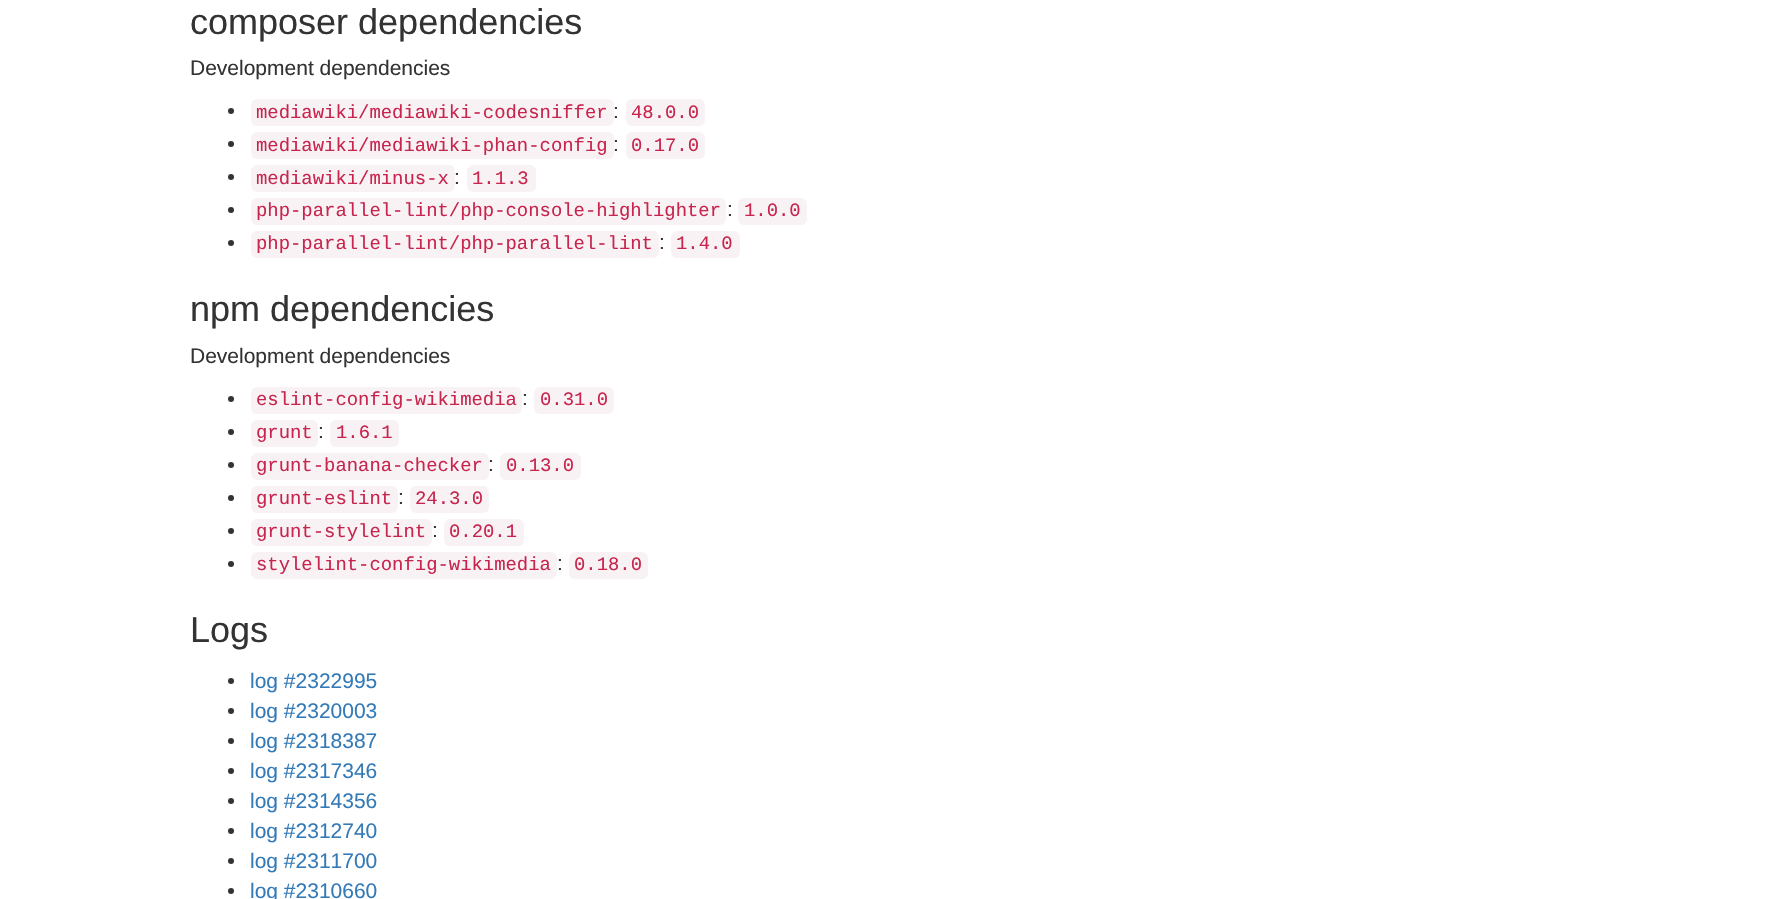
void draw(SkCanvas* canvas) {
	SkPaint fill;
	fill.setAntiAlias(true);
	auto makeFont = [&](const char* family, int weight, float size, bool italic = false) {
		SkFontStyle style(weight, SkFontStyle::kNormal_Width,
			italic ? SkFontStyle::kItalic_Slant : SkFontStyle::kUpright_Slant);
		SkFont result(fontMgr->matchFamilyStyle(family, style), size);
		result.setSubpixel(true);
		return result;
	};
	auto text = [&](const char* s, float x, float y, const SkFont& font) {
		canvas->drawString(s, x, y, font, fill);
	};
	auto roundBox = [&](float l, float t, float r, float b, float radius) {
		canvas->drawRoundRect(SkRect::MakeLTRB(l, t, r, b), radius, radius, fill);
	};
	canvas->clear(0xFFFFFFFF);
	fill.setColor(0xFF333333);
	canvas->drawCircle(231, 111, 3, fill);
	fill.setColor(0xFFF9F2F4);
	roundBox(251, 99, 614, 126, 6);
	roundBox(626, 99, 705, 126, 6);
	fill.setColor(0xFF333333);
	canvas->drawCircle(231, 144, 3, fill);
	fill.setColor(0xFFF9F2F4);
	roundBox(251, 132, 614, 159, 6);
	roundBox(626, 132, 705, 159, 6);
	fill.setColor(0xFF333333);
	canvas->drawCircle(231, 177, 3, fill);
	fill.setColor(0xFFF9F2F4);
	roundBox(251, 165, 455, 192, 6);
	roundBox(467, 165, 536, 192, 6);
	fill.setColor(0xFF333333);
	canvas->drawCircle(231, 210, 3, fill);
	fill.setColor(0xFFF9F2F4);
	roundBox(251, 198, 726, 225, 6);
	roundBox(738, 198, 807, 225, 6);
	fill.setColor(0xFF333333);
	canvas->drawCircle(231, 243, 3, fill);
	fill.setColor(0xFFF9F2F4);
	roundBox(251, 231, 659, 258, 6);
	roundBox(671, 231, 740, 258, 6);
	fill.setColor(0xFF333333);
	canvas->drawCircle(231, 399, 3, fill);
	fill.setColor(0xFFF9F2F4);
	roundBox(251, 387, 522, 414, 6);
	roundBox(534, 387, 614, 414, 6);
	fill.setColor(0xFF333333);
	canvas->drawCircle(231, 432, 3, fill);
	fill.setColor(0xFFF9F2F4);
	roundBox(251, 420, 318, 447, 6);
	roundBox(330, 420, 399, 447, 6);
	fill.setColor(0xFF333333);
	canvas->drawCircle(231, 465, 3, fill);
	fill.setColor(0xFFF9F2F4);
	roundBox(251, 453, 489, 480, 6);
	roundBox(500, 453, 581, 480, 6);
	fill.setColor(0xFF333333);
	canvas->drawCircle(231, 498, 3, fill);
	fill.setColor(0xFFF9F2F4);
	roundBox(251, 486, 398, 513, 6);
	roundBox(410, 486, 489, 513, 6);
	fill.setColor(0xFF333333);
	canvas->drawCircle(231, 531, 3, fill);
	fill.setColor(0xFFF9F2F4);
	roundBox(251, 519, 432, 546, 6);
	roundBox(444, 519, 524, 546, 6);
	fill.setColor(0xFF333333);
	canvas->drawCircle(231, 564, 3, fill);
	fill.setColor(0xFFF9F2F4);
	roundBox(251, 552, 557, 579, 6);
	roundBox(569, 552, 648, 579, 6);
	fill.setColor(0xFF333333);
	canvas->drawCircle(231, 681, 3, fill);
	canvas->drawCircle(231, 711, 3, fill);
	canvas->drawCircle(231, 741, 3, fill);
	canvas->drawCircle(231, 771, 3, fill);
	canvas->drawCircle(231, 801, 3, fill);
	canvas->drawCircle(231, 831, 3, fill);
	canvas->drawCircle(231, 861, 3, fill);
	canvas->drawCircle(231, 891, 3, fill);
	auto font1 = makeFont("Liberation Sans", 400, 36);
	text("composer dependencies", 190, 34, font1);
	auto font2 = makeFont("Liberation Sans", 400, 21);
	text("Development dependencies", 190, 75, font2);
	auto font3 = makeFont("Liberation Mono", 400, 18.9f);
	fill.setColor(0xFFC7254E);
	text("mediawiki/mediawiki-codesniffer", 256, 118, font3);
	fill.setColor(0xFF333333);
	text(":", 613, 118, font2);
	fill.setColor(0xFFC7254E);
	text("48.0.0", 631, 118, font3);
	text("mediawiki/mediawiki-phan-config", 256, 151, font3);
	fill.setColor(0xFF333333);
	text(":", 613, 151, font2);
	fill.setColor(0xFFC7254E);
	text("0.17.0", 631, 151, font3);
	text("mediawiki/minus-x", 256, 184, font3);
	fill.setColor(0xFF333333);
	text(":", 454, 184, font2);
	fill.setColor(0xFFC7254E);
	text("1.1.3", 472, 184, font3);
	text("php-parallel-lint/php-console-highlighter", 256, 216, font3);
	fill.setColor(0xFF333333);
	text(":", 727, 216, font2);
	fill.setColor(0xFFC7254E);
	text("1.0.0", 744, 216, font3);
	text("php-parallel-lint/php-parallel-lint", 256, 249, font3);
	fill.setColor(0xFF333333);
	text(":", 659, 249, font2);
	fill.setColor(0xFFC7254E);
	text("1.4.0", 676, 249, font3);
	fill.setColor(0xFF333333);
	text("npm dependencies", 190, 321, font1);
	text("Development dependencies", 190, 363, font2);
	fill.setColor(0xFFC7254E);
	text("eslint-config-wikimedia", 256, 405, font3);
	fill.setColor(0xFF333333);
	text(":", 522, 405, font2);
	fill.setColor(0xFFC7254E);
	text("0.31.0", 540, 405, font3);
	text("grunt", 256, 438, font3);
	fill.setColor(0xFF333333);
	text(":", 318, 438, font2);
	fill.setColor(0xFFC7254E);
	text("1.6.1", 336, 438, font3);
	text("grunt-banana-checker", 256, 471, font3);
	fill.setColor(0xFF333333);
	text(":", 488, 471, font2);
	fill.setColor(0xFFC7254E);
	text("0.13.0", 506, 471, font3);
	text("grunt-eslint", 256, 504, font3);
	fill.setColor(0xFF333333);
	text(":", 398, 504, font2);
	fill.setColor(0xFFC7254E);
	text("24.3.0", 415, 504, font3);
	text("grunt-stylelint", 256, 537, font3);
	fill.setColor(0xFF333333);
	text(":", 432, 537, font2);
	fill.setColor(0xFFC7254E);
	text("0.20.1", 449, 537, font3);
	text("stylelint-config-wikimedia", 256, 570, font3);
	fill.setColor(0xFF333333);
	text(":", 557, 570, font2);
	fill.setColor(0xFFC7254E);
	text("0.18.0", 574, 570, font3);
	fill.setColor(0xFF333333);
	text("Logs", 190, 642, font1);
	fill.setColor(0xFF337AB7);
	text("log #2322995", 250, 688, font2);
	text("log #2320003", 250, 718, font2);
	text("log #2318387", 250, 748, font2);
	text("log #2317346", 250, 778, font2);
	text("log #2314356", 250, 808, font2);
	text("log #2312740", 250, 838, font2);
	text("log #2311700", 250, 868, font2);
	text("log #2310660", 250, 898, font2);
}
